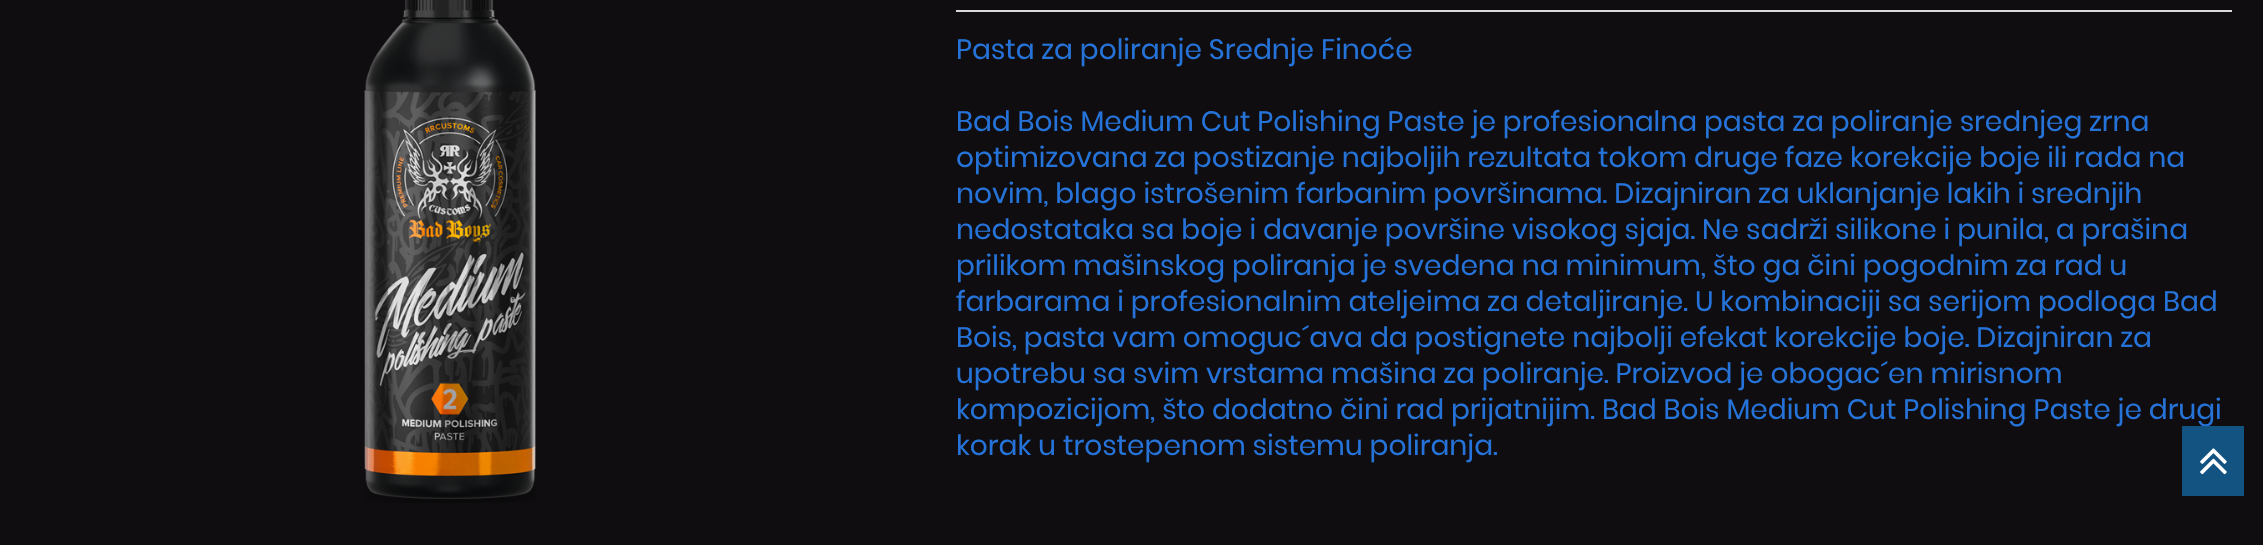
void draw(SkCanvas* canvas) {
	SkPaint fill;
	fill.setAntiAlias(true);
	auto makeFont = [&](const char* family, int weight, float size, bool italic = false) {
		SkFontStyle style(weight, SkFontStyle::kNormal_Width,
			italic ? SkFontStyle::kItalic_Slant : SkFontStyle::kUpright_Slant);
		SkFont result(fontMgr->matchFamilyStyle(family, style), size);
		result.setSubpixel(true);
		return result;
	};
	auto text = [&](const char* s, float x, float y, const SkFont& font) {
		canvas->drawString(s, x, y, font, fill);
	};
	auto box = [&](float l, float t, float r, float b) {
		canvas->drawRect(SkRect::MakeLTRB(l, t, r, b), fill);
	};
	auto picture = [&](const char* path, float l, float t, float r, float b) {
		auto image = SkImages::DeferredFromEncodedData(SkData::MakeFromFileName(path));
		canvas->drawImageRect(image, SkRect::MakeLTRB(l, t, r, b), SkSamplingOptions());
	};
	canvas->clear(0xFF0F0D0F);
	picture("image0.png", 364, 0, 536, 503);
	fill.setColor(0xFFD9D9D9);
	box(956, 10, 2232, 12);
	auto font1 = makeFont("Poppins", 400, 28);
	fill.setColor(0xFF2573D9);
	text("Pasta za poliranje Srednje Finoće", 956, 59, font1);
	text("Bad Bois Medium Cut Polishing Paste je profesionalna pasta za poliranje srednjeg zrna", 956, 131, font1);
	text("optimizovana za postizanje najboljih rezultata tokom druge faze korekcije boje ili rada na", 956, 167, font1);
	text("novim, blago istrošenim farbanim površinama. Dizajniran za uklanjanje lakih i srednjih", 956, 203, font1);
	text("nedostataka sa boje i davanje površine visokog sjaja. Ne sadrži silikone i punila, a prašina", 956, 239, font1);
	text("prilikom mašinskog poliranja je svedena na minimum, što ga čini pogodnim za rad u", 956, 275, font1);
	text("farbarama i profesionalnim ateljeima za detaljiranje. U kombinaciji sa serijom podloga Bad", 956, 311, font1);
	text("Bois, pasta vam omoguc´ava da postignete najbolji efekat korekcije boje. Dizajniran za", 956, 347, font1);
	text("upotrebu sa svim vrstama mašina za poliranje. Proizvod je obogac´en mirisnom", 956, 383, font1);
	text("kompozicijom, što dodatno čini rad prijatnijim. Bad Bois Medium Cut Polishing Paste je drugi", 956, 419, font1);
	text("korak u trostepenom sistemu poliranja.", 956, 455, font1);
	fill.setColor(0xFF125382);
	box(2182, 426, 2244, 496);
	picture("image1.png", 2200, 448, 2227, 475);
}
